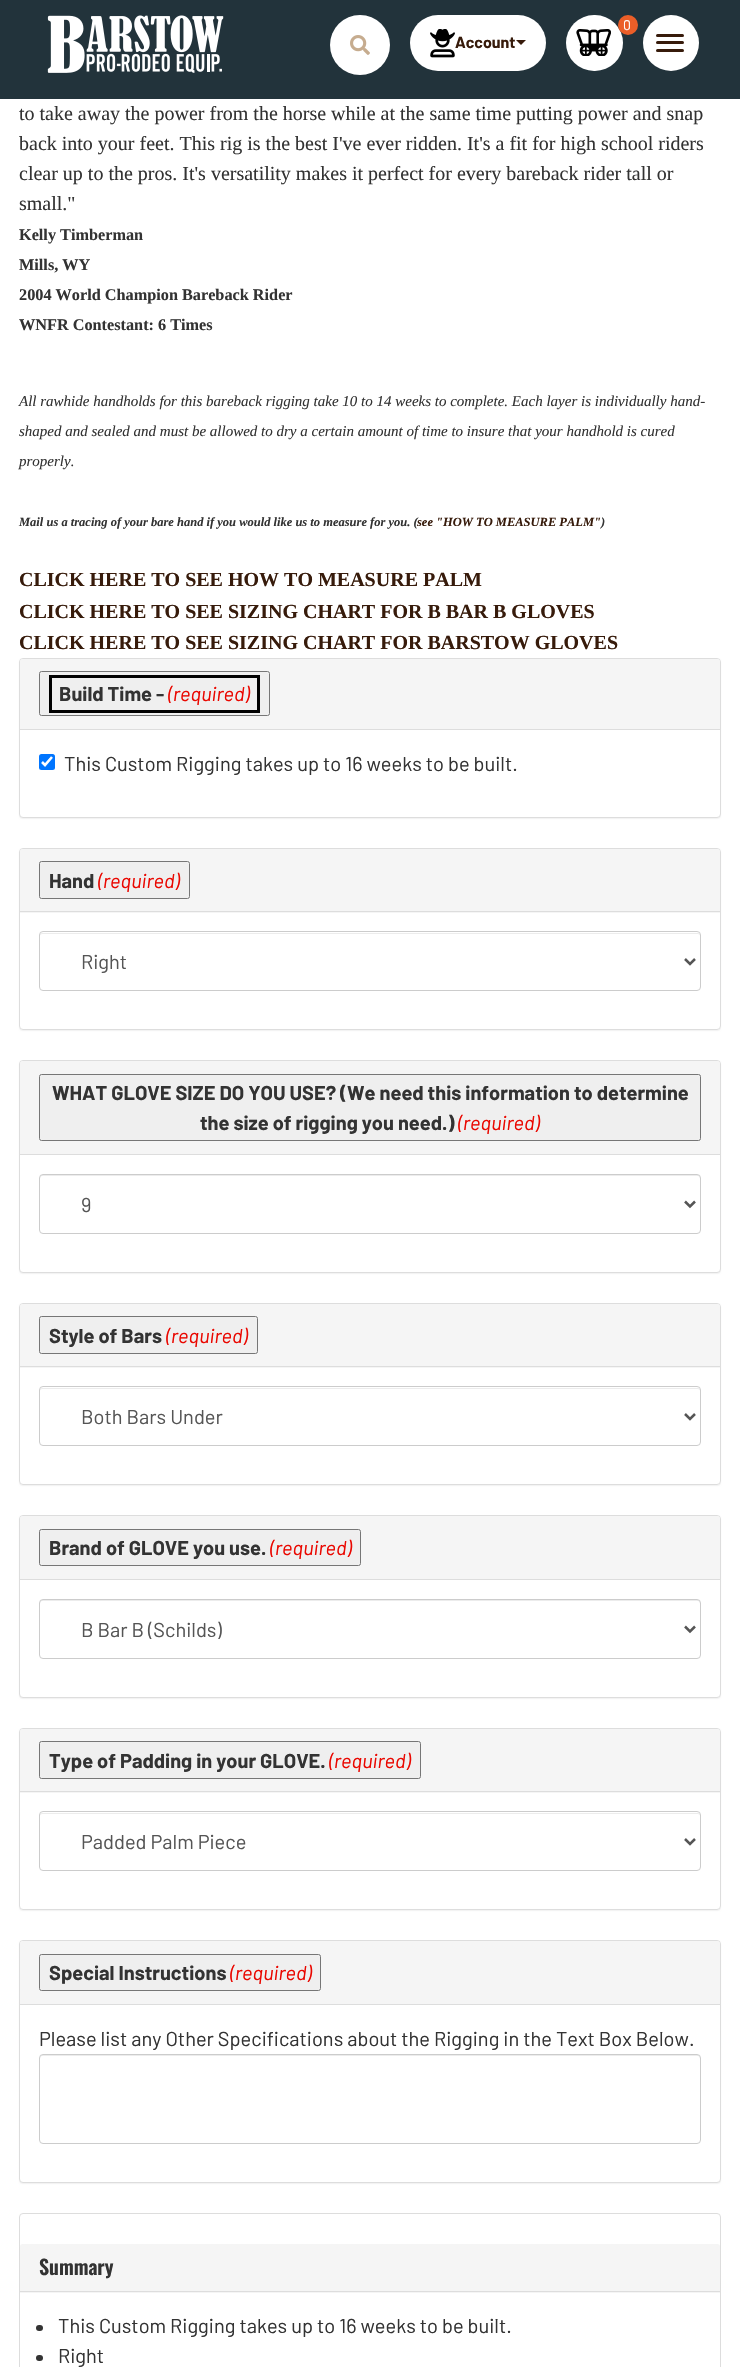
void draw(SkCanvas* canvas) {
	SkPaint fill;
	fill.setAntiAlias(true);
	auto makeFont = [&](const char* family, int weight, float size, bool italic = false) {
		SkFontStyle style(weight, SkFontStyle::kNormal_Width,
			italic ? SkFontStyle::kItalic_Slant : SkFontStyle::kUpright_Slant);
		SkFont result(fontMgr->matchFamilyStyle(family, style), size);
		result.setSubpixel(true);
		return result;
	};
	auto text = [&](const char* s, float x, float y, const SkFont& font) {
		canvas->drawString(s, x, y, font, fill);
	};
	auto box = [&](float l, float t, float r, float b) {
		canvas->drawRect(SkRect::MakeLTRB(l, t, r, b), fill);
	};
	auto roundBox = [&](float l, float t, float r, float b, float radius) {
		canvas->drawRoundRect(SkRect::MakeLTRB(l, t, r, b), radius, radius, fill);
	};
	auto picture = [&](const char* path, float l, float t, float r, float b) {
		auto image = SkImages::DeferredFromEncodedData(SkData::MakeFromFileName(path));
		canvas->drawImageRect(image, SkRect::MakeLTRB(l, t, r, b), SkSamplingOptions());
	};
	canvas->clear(0xFFFFFFFF);
	fill.setColor(0xFF22333B);
	box(0, 0, 740, 99);
	picture("image0.png", 47, 15, 224, 73);
	fill.setColor(0xFFFFFFFF);
	canvas->drawCircle(360, 45, 30, fill);
	picture("image1.png", 350, 35, 370, 55);
	roundBox(566, 15, 623, 71, 28);
	fill.setColor(0xFFEB5E28);
	canvas->drawCircle(628, 25, 10, fill);
	picture("image2.png", 576, 29, 611, 56);
	fill.setColor(0xFFFFFFFF);
	canvas->drawCircle(671, 43, 28, fill);
	fill.setColor(0xFF371B0B);
	roundBox(656, 34, 684, 37, 1.5f);
	roundBox(656, 41, 684, 44, 1.5f);
	roundBox(656, 49, 684, 52, 1.5f);
	fill.setColor(0xFFFFFFFF);
	roundBox(410, 15, 546, 71, 28);
	picture("image3.png", 430, 29, 455, 58);
	fill.setColor(0xFF371B0B);
	canvas->drawPath(SkPathBuilder().moveTo(516, 40).lineTo(526, 40).lineTo(521, 45).close().detach(), fill);
	fill.setColor(0x0D000000);
	fill.setMaskFilter(SkMaskFilter::MakeBlur(kNormal_SkBlurStyle, 0.5f));
	canvas->drawRoundRect(SkRect::MakeLTRB(19, 659, 721, 819), 4, 4, fill);
	fill.setMaskFilter(nullptr);
	fill.setColor(0xFFFFFFFF);
	canvas->drawRoundRect(SkRect::MakeLTRB(19.5f, 658.5f, 720.5f, 817.5f), 3.5f, 3.5f, fill);
	fill.setStyle(SkPaint::kStroke_Style);
	fill.setStrokeWidth(1);
	fill.setColor(0xFFDDDDDD);
	canvas->drawRoundRect(SkRect::MakeLTRB(19.5f, 658.5f, 720.5f, 817.5f), 3.5f, 3.5f, fill);
	fill.setStyle(SkPaint::kFill_Style);
	fill.setColor(0xFFF5F5F5);
	canvas->drawPath(SkPathBuilder().moveTo(22.5f, 659).lineTo(717.5f, 659).cubicTo(719, 659, 720, 660, 720, 661.5f).lineTo(720, 730).lineTo(20, 730).lineTo(20, 661.5f).cubicTo(20, 660, 21, 659, 22.5f, 659).close().detach(), fill);
	fill.setColor(0xFFDDDDDD);
	box(20, 729, 720, 730);
	fill.setColor(0xFFEFEFEF);
	canvas->drawRoundRect(SkRect::MakeLTRB(39.5f, 671.5f, 269.5f, 715.5f), 2, 2, fill);
	fill.setStyle(SkPaint::kStroke_Style);
	fill.setColor(0xFF767676);
	canvas->drawRoundRect(SkRect::MakeLTRB(39.5f, 671.5f, 269.5f, 715.5f), 2, 2, fill);
	fill.setStrokeWidth(3);
	fill.setColor(0xFF000000);
	canvas->drawRect(SkRect::MakeLTRB(50.5f, 676.5f, 258.5f, 711.5f), fill);
	fill.setStyle(SkPaint::kFill_Style);
	fill.setColor(0xFF0075FF);
	roundBox(39, 754, 55, 770, 2.5f);
	fill.setStyle(SkPaint::kStroke_Style);
	fill.setStrokeWidth(2.6f);
	fill.setColor(0xFFFFFFFF);
	canvas->drawPath(SkPathBuilder().moveTo(42, 762).lineTo(45, 765).lineTo(52, 757).detach(), fill);
	canvas->save();
	canvas->clipPath(SkPathBuilder(SkPathFillType::kEvenOdd).moveTo(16, 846).lineTo(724, 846).lineTo(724, 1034).lineTo(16, 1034).close().moveTo(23, 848).lineTo(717, 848).cubicTo(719, 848, 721, 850, 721, 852).lineTo(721, 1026).cubicTo(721, 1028, 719, 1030, 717, 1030).lineTo(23, 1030).cubicTo(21, 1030, 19, 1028, 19, 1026).lineTo(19, 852).cubicTo(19, 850, 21, 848, 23, 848).close().detach(), true);
	fill.setStyle(SkPaint::kFill_Style);
	fill.setColor(0x0D000000);
	fill.setMaskFilter(SkMaskFilter::MakeBlur(kNormal_SkBlurStyle, 0.5f));
	canvas->drawRoundRect(SkRect::MakeLTRB(19, 849, 721, 1031), 4, 4, fill);
	fill.setMaskFilter(nullptr);
	canvas->restore();
	fill.setStyle(SkPaint::kStroke_Style);
	fill.setStrokeWidth(1);
	fill.setColor(0xFFDDDDDD);
	canvas->drawRoundRect(SkRect::MakeLTRB(19.5f, 848.5f, 720.5f, 1029.5f), 3.5f, 3.5f, fill);
	fill.setStyle(SkPaint::kFill_Style);
	fill.setColor(0xFFF5F5F5);
	canvas->drawPath(SkPathBuilder().moveTo(22.5f, 849).lineTo(717.5f, 849).cubicTo(719, 849, 720, 850, 720, 851.5f).lineTo(720, 913).lineTo(20, 913).lineTo(20, 851.5f).cubicTo(20, 850, 21, 849, 22.5f, 849).close().detach(), fill);
	fill.setColor(0xFFDDDDDD);
	box(20, 911, 720, 912);
	fill.setColor(0xFFEFEFEF);
	canvas->drawRoundRect(SkRect::MakeLTRB(39.5f, 861.5f, 189.5f, 898.5f), 2, 2, fill);
	fill.setStyle(SkPaint::kStroke_Style);
	fill.setColor(0xFF767676);
	canvas->drawRoundRect(SkRect::MakeLTRB(39.5f, 861.5f, 189.5f, 898.5f), 2, 2, fill);
	fill.setStyle(SkPaint::kFill_Style);
	fill.setColor(0xFFECECEC);
	canvas->drawPath(SkPathBuilder().moveTo(42, 934).lineTo(698, 934).cubicTo(699, 934, 700, 935, 700, 936).cubicTo(700, 934, 699, 933, 698, 933).lineTo(42, 933).cubicTo(41, 933, 40, 934, 40, 936).cubicTo(40, 935, 41, 934, 42, 934).close().detach(), fill);
	fill.setStyle(SkPaint::kStroke_Style);
	fill.setColor(0xFFCCCCCC);
	canvas->drawRoundRect(SkRect::MakeLTRB(39.5f, 931.5f, 700.5f, 990.5f), 3.5f, 3.5f, fill);
	fill.setStrokeWidth(2.5f);
	fill.setColor(0xFF555555);
	canvas->drawPath(SkPathBuilder().moveTo(685, 959).lineTo(690, 964).lineTo(695, 959).detach(), fill);
	fill.setStyle(SkPaint::kFill_Style);
	fill.setColor(0x0D000000);
	fill.setMaskFilter(SkMaskFilter::MakeBlur(kNormal_SkBlurStyle, 0.5f));
	canvas->drawRoundRect(SkRect::MakeLTRB(19, 1061, 721, 1274), 4, 4, fill);
	fill.setMaskFilter(nullptr);
	fill.setColor(0xFFFFFFFF);
	canvas->drawRoundRect(SkRect::MakeLTRB(19.5f, 1060.5f, 720.5f, 1272.5f), 3.5f, 3.5f, fill);
	fill.setStyle(SkPaint::kStroke_Style);
	fill.setStrokeWidth(1);
	fill.setColor(0xFFDDDDDD);
	canvas->drawRoundRect(SkRect::MakeLTRB(19.5f, 1060.5f, 720.5f, 1272.5f), 3.5f, 3.5f, fill);
	fill.setStyle(SkPaint::kFill_Style);
	fill.setColor(0xFFF5F5F5);
	canvas->drawPath(SkPathBuilder().moveTo(22.5f, 1061).lineTo(717.5f, 1061).cubicTo(719, 1061, 720, 1062, 720, 1063.5f).lineTo(720, 1155).lineTo(20, 1155).lineTo(20, 1063.5f).cubicTo(20, 1062, 21, 1061, 22.5f, 1061).close().detach(), fill);
	fill.setColor(0xFFDDDDDD);
	box(20, 1154, 720, 1155);
	fill.setColor(0xFFEFEFEF);
	canvas->drawRoundRect(SkRect::MakeLTRB(39.5f, 1074.5f, 700.5f, 1140.5f), 2, 2, fill);
	fill.setStyle(SkPaint::kStroke_Style);
	fill.setColor(0xFF767676);
	canvas->drawRoundRect(SkRect::MakeLTRB(39.5f, 1074.5f, 700.5f, 1140.5f), 2, 2, fill);
	fill.setStyle(SkPaint::kFill_Style);
	fill.setColor(0xFFECECEC);
	canvas->drawPath(SkPathBuilder().moveTo(42, 1176).lineTo(698, 1176).cubicTo(699, 1176, 700, 1177, 700, 1179).lineTo(700, 1178).cubicTo(700, 1176, 699, 1175, 698, 1175).lineTo(42, 1175).cubicTo(41, 1175, 40, 1176, 40, 1178).lineTo(40, 1179).cubicTo(40, 1177, 41, 1176, 42, 1176).close().detach(), fill);
	fill.setStyle(SkPaint::kStroke_Style);
	fill.setColor(0xFFCCCCCC);
	canvas->drawRoundRect(SkRect::MakeLTRB(39.5f, 1174.5f, 700.5f, 1233.5f), 3.5f, 3.5f, fill);
	fill.setStrokeWidth(2.5f);
	fill.setColor(0xFF555555);
	canvas->drawPath(SkPathBuilder().moveTo(685, 1201.5f).lineTo(690, 1206.5f).lineTo(695, 1201.5f).detach(), fill);
	canvas->save();
	canvas->clipPath(SkPathBuilder(SkPathFillType::kEvenOdd).moveTo(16, 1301).lineTo(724, 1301).lineTo(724, 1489).lineTo(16, 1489).close().moveTo(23, 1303).lineTo(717, 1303).cubicTo(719, 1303, 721, 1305, 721, 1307).lineTo(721, 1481).cubicTo(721, 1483, 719, 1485, 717, 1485).lineTo(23, 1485).cubicTo(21, 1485, 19, 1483, 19, 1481).lineTo(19, 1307).cubicTo(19, 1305, 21, 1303, 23, 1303).close().detach(), true);
	fill.setStyle(SkPaint::kFill_Style);
	fill.setColor(0x0D000000);
	fill.setMaskFilter(SkMaskFilter::MakeBlur(kNormal_SkBlurStyle, 0.5f));
	canvas->drawRoundRect(SkRect::MakeLTRB(19, 1304, 721, 1486), 4, 4, fill);
	fill.setMaskFilter(nullptr);
	canvas->restore();
	fill.setStyle(SkPaint::kStroke_Style);
	fill.setStrokeWidth(1);
	fill.setColor(0xFFDDDDDD);
	canvas->drawRoundRect(SkRect::MakeLTRB(19.5f, 1303.5f, 720.5f, 1484.5f), 3.5f, 3.5f, fill);
	fill.setStyle(SkPaint::kFill_Style);
	fill.setColor(0xFFF5F5F5);
	canvas->drawPath(SkPathBuilder().moveTo(22.5f, 1304).lineTo(717.5f, 1304).cubicTo(719, 1304, 720, 1305, 720, 1306.5f).lineTo(720, 1368).lineTo(20, 1368).lineTo(20, 1306.5f).cubicTo(20, 1305, 21, 1304, 22.5f, 1304).close().detach(), fill);
	fill.setColor(0xFFDDDDDD);
	box(20, 1366, 720, 1367);
	fill.setColor(0xFFEFEFEF);
	canvas->drawRoundRect(SkRect::MakeLTRB(39.5f, 1316.5f, 257.5f, 1353.5f), 2, 2, fill);
	fill.setStyle(SkPaint::kStroke_Style);
	fill.setColor(0xFF767676);
	canvas->drawRoundRect(SkRect::MakeLTRB(39.5f, 1316.5f, 257.5f, 1353.5f), 2, 2, fill);
	fill.setStyle(SkPaint::kFill_Style);
	fill.setColor(0xFFECECEC);
	canvas->drawPath(SkPathBuilder().moveTo(42, 1389).lineTo(698, 1389).cubicTo(699, 1389, 700, 1390, 700, 1391).cubicTo(700, 1389, 699, 1388, 698, 1388).lineTo(42, 1388).cubicTo(41, 1388, 40, 1389, 40, 1391).cubicTo(40, 1390, 41, 1389, 42, 1389).close().detach(), fill);
	fill.setStyle(SkPaint::kStroke_Style);
	fill.setColor(0xFFCCCCCC);
	canvas->drawRoundRect(SkRect::MakeLTRB(39.5f, 1386.5f, 700.5f, 1445.5f), 3.5f, 3.5f, fill);
	fill.setStrokeWidth(2.5f);
	fill.setColor(0xFF555555);
	canvas->drawPath(SkPathBuilder().moveTo(685, 1414).lineTo(690, 1419).lineTo(695, 1414).detach(), fill);
	fill.setStyle(SkPaint::kFill_Style);
	fill.setColor(0x0D000000);
	fill.setMaskFilter(SkMaskFilter::MakeBlur(kNormal_SkBlurStyle, 0.5f));
	canvas->drawRoundRect(SkRect::MakeLTRB(19, 1516, 721, 1699), 4, 4, fill);
	fill.setMaskFilter(nullptr);
	fill.setColor(0xFFFFFFFF);
	canvas->drawRoundRect(SkRect::MakeLTRB(19.5f, 1515.5f, 720.5f, 1697.5f), 3.5f, 3.5f, fill);
	fill.setStyle(SkPaint::kStroke_Style);
	fill.setStrokeWidth(1);
	fill.setColor(0xFFDDDDDD);
	canvas->drawRoundRect(SkRect::MakeLTRB(19.5f, 1515.5f, 720.5f, 1697.5f), 3.5f, 3.5f, fill);
	fill.setStyle(SkPaint::kFill_Style);
	fill.setColor(0xFFF5F5F5);
	canvas->drawPath(SkPathBuilder().moveTo(22.5f, 1516).lineTo(717.5f, 1516).cubicTo(719, 1516, 720, 1517, 720, 1518.5f).lineTo(720, 1580).lineTo(20, 1580).lineTo(20, 1518.5f).cubicTo(20, 1517, 21, 1516, 22.5f, 1516).close().detach(), fill);
	fill.setColor(0xFFDDDDDD);
	box(20, 1579, 720, 1580);
	fill.setColor(0xFFEFEFEF);
	canvas->drawRoundRect(SkRect::MakeLTRB(39.5f, 1529.5f, 360.5f, 1565.5f), 2, 2, fill);
	fill.setStyle(SkPaint::kStroke_Style);
	fill.setColor(0xFF767676);
	canvas->drawRoundRect(SkRect::MakeLTRB(39.5f, 1529.5f, 360.5f, 1565.5f), 2, 2, fill);
	fill.setStyle(SkPaint::kFill_Style);
	fill.setColor(0xFFECECEC);
	canvas->drawPath(SkPathBuilder().moveTo(42, 1601).lineTo(698, 1601).cubicTo(699, 1601, 700, 1602, 700, 1604).lineTo(700, 1602).cubicTo(700, 1601, 699, 1600, 698, 1600).lineTo(42, 1600).cubicTo(41, 1600, 40, 1601, 40, 1602).lineTo(40, 1604).cubicTo(40, 1602, 41, 1601, 42, 1601).close().detach(), fill);
	fill.setStyle(SkPaint::kStroke_Style);
	fill.setColor(0xFFCCCCCC);
	canvas->drawRoundRect(SkRect::MakeLTRB(39.5f, 1599.5f, 700.5f, 1658.5f), 3.5f, 3.5f, fill);
	fill.setStrokeWidth(2.5f);
	fill.setColor(0xFF555555);
	canvas->drawPath(SkPathBuilder().moveTo(685, 1626.5f).lineTo(690, 1631.5f).lineTo(695, 1626.5f).detach(), fill);
	canvas->save();
	canvas->clipPath(SkPathBuilder(SkPathFillType::kEvenOdd).moveTo(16, 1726).lineTo(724, 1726).lineTo(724, 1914).lineTo(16, 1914).close().moveTo(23, 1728).lineTo(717, 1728).cubicTo(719, 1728, 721, 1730, 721, 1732).lineTo(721, 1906).cubicTo(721, 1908, 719, 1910, 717, 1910).lineTo(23, 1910).cubicTo(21, 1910, 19, 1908, 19, 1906).lineTo(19, 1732).cubicTo(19, 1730, 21, 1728, 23, 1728).close().detach(), true);
	fill.setStyle(SkPaint::kFill_Style);
	fill.setColor(0x0D000000);
	fill.setMaskFilter(SkMaskFilter::MakeBlur(kNormal_SkBlurStyle, 0.5f));
	canvas->drawRoundRect(SkRect::MakeLTRB(19, 1729, 721, 1911), 4, 4, fill);
	fill.setMaskFilter(nullptr);
	canvas->restore();
	fill.setStyle(SkPaint::kStroke_Style);
	fill.setStrokeWidth(1);
	fill.setColor(0xFFDDDDDD);
	canvas->drawRoundRect(SkRect::MakeLTRB(19.5f, 1728.5f, 720.5f, 1909.5f), 3.5f, 3.5f, fill);
	fill.setStyle(SkPaint::kFill_Style);
	fill.setColor(0xFFF5F5F5);
	canvas->drawPath(SkPathBuilder().moveTo(22.5f, 1729).lineTo(717.5f, 1729).cubicTo(719, 1729, 720, 1730, 720, 1731.5f).lineTo(720, 1793).lineTo(20, 1793).lineTo(20, 1731.5f).cubicTo(20, 1730, 21, 1729, 22.5f, 1729).close().detach(), fill);
	fill.setColor(0xFFDDDDDD);
	box(20, 1791, 720, 1792);
	fill.setColor(0xFFEFEFEF);
	canvas->drawRoundRect(SkRect::MakeLTRB(39.5f, 1741.5f, 420.5f, 1778.5f), 2, 2, fill);
	fill.setStyle(SkPaint::kStroke_Style);
	fill.setColor(0xFF767676);
	canvas->drawRoundRect(SkRect::MakeLTRB(39.5f, 1741.5f, 420.5f, 1778.5f), 2, 2, fill);
	fill.setStyle(SkPaint::kFill_Style);
	fill.setColor(0xFFECECEC);
	canvas->drawPath(SkPathBuilder().moveTo(42, 1814).lineTo(698, 1814).cubicTo(699, 1814, 700, 1815, 700, 1816).cubicTo(700, 1814, 699, 1813, 698, 1813).lineTo(42, 1813).cubicTo(41, 1813, 40, 1814, 40, 1816).cubicTo(40, 1815, 41, 1814, 42, 1814).close().detach(), fill);
	fill.setStyle(SkPaint::kStroke_Style);
	fill.setColor(0xFFCCCCCC);
	canvas->drawRoundRect(SkRect::MakeLTRB(39.5f, 1811.5f, 700.5f, 1870.5f), 3.5f, 3.5f, fill);
	fill.setStrokeWidth(2.5f);
	fill.setColor(0xFF555555);
	canvas->drawPath(SkPathBuilder().moveTo(685, 1839).lineTo(690, 1844).lineTo(695, 1839).detach(), fill);
	fill.setStyle(SkPaint::kFill_Style);
	fill.setColor(0x0D000000);
	fill.setMaskFilter(SkMaskFilter::MakeBlur(kNormal_SkBlurStyle, 0.5f));
	canvas->drawRoundRect(SkRect::MakeLTRB(19, 1941, 721, 2184), 4, 4, fill);
	fill.setMaskFilter(nullptr);
	fill.setColor(0xFFFFFFFF);
	canvas->drawRoundRect(SkRect::MakeLTRB(19.5f, 1940.5f, 720.5f, 2182.5f), 3.5f, 3.5f, fill);
	fill.setStyle(SkPaint::kStroke_Style);
	fill.setStrokeWidth(1);
	fill.setColor(0xFFDDDDDD);
	canvas->drawRoundRect(SkRect::MakeLTRB(19.5f, 1940.5f, 720.5f, 2182.5f), 3.5f, 3.5f, fill);
	fill.setStyle(SkPaint::kFill_Style);
	fill.setColor(0xFFF5F5F5);
	canvas->drawPath(SkPathBuilder().moveTo(22.5f, 1941).lineTo(717.5f, 1941).cubicTo(719, 1941, 720, 1942, 720, 1943.5f).lineTo(720, 2005).lineTo(20, 2005).lineTo(20, 1943.5f).cubicTo(20, 1942, 21, 1941, 22.5f, 1941).close().detach(), fill);
	fill.setColor(0xFFDDDDDD);
	box(20, 2004, 720, 2005);
	fill.setColor(0xFFEFEFEF);
	canvas->drawRoundRect(SkRect::MakeLTRB(39.5f, 1954.5f, 320.5f, 1990.5f), 2, 2, fill);
	fill.setStyle(SkPaint::kStroke_Style);
	fill.setColor(0xFF767676);
	canvas->drawRoundRect(SkRect::MakeLTRB(39.5f, 1954.5f, 320.5f, 1990.5f), 2, 2, fill);
	fill.setStyle(SkPaint::kFill_Style);
	fill.setColor(0xFFECECEC);
	canvas->drawPath(SkPathBuilder().moveTo(42, 2056).lineTo(698, 2056).cubicTo(699, 2056, 700, 2057, 700, 2059).lineTo(700, 2058).cubicTo(700, 2056, 699, 2055, 698, 2055).lineTo(42, 2055).cubicTo(41, 2055, 40, 2056, 40, 2058).lineTo(40, 2059).cubicTo(40, 2057, 41, 2056, 42, 2056).close().detach(), fill);
	fill.setStyle(SkPaint::kStroke_Style);
	fill.setColor(0xFFCCCCCC);
	canvas->drawRoundRect(SkRect::MakeLTRB(39.5f, 2054.5f, 700.5f, 2143.5f), 3.5f, 3.5f, fill);
	fill.setColor(0xFFDDDDDD);
	canvas->drawRoundRect(SkRect::MakeLTRB(19.5f, 2213.5f, 720.5f, 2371.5f), 3.5f, 3.5f, fill);
	fill.setStyle(SkPaint::kFill_Style);
	fill.setColor(0xFFF5F5F5);
	canvas->drawPath(SkPathBuilder().moveTo(22.5f, 2244).lineTo(717.5f, 2244).cubicTo(719, 2244, 720, 2245, 720, 2246.5f).lineTo(720, 2293).lineTo(20, 2293).lineTo(20, 2246.5f).cubicTo(20, 2245, 21, 2244, 22.5f, 2244).close().detach(), fill);
	fill.setColor(0xFFDDDDDD);
	box(20, 2291, 720, 2292);
	fill.setColor(0xFF333333);
	roundBox(36, 2325, 43, 2331, 3);
	roundBox(36, 2355, 43, 2361, 3);
	auto font1 = makeFont("Barlow", 400, 14);
	fill.setColor(0xFFFFFFFF);
	text("0", 623, 30, font1);
	auto font2 = makeFont("Barlow", 700, 16);
	fill.setColor(0xFF371B0B);
	text("Account", 455, 48, font2);
	auto font3 = makeFont("Liberation Serif", 400, 20);
	fill.setColor(0xFF333333);
	text("to take away the power from the horse while at the same time putting power and snap", 19, 120, font3);
	text("back into your feet. This rig is the best I've ever ridden. It's a fit for high school riders", 19, 150, font3);
	text("clear up to the pros. It's versatility makes it perfect for every bareback rider tall or", 19, 180, font3);
	text("small.\"", 19, 210, font3);
	auto font4 = makeFont("Liberation Serif", 700, 16.25f);
	text("Kelly Timberman", 19, 240, font4);
	text("Mills, WY", 19, 270, font4);
	text("2004 World Champion Bareback Rider", 19, 300, font4);
	text("WNFR Contestant: 6 Times", 19, 330, font4);
	auto font5 = makeFont("Liberation Serif", 400, 15, true);
	text("All rawhide handholds for this bareback rigging take 10 to 14 weeks to complete. Each layer is individually hand-", 19, 406, font5);
	text("shaped and sealed and must be allowed to dry a certain amount of time to insure that your handhold is cured", 19, 436, font5);
	text("properly.", 19, 466, font5);
	auto font6 = makeFont("Liberation Serif", 700, 12.5f, true);
	text("Mail us a tracing of your bare hand if you would like us to measure for you. (", 19, 526, font6);
	fill.setColor(0xFF371B0B);
	text("see \"HOW TO MEASURE PALM\"", 417, 526, font6);
	fill.setColor(0xFF333333);
	text(")", 601, 526, font6);
	auto font7 = makeFont("Liberation Serif", 700, 20);
	fill.setColor(0xFF371B0B);
	text("CLICK HERE TO SEE HOW TO MEASURE PALM", 19, 586, font7);
	text("CLICK HERE TO SEE SIZING CHART FOR B BAR B GLOVES", 19, 618, font7);
	text("CLICK HERE TO SEE SIZING CHART FOR BARSTOW GLOVES", 19, 649, font7);
	auto font8 = makeFont("Barlow", 700, 20);
	fill.setColor(0xFF333333);
	text("Build Time -", 59, 701, font8);
	auto font9 = makeFont("Barlow", 400, 20, true);
	fill.setColor(0xFFEA0700);
	text("(required)", 168, 701, font9);
	auto font10 = makeFont("Barlow", 400, 20);
	fill.setColor(0xFF333333);
	text("This Custom Rigging takes up to 16 weeks to be built.", 64, 771, font10);
	text("Hand", 49, 888, font8);
	fill.setColor(0xFFEA0700);
	text("(required)", 98, 888, font9);
	fill.setColor(0xFF555555);
	text("Right", 81, 969, font10);
	fill.setColor(0xFF333333);
	text("WHAT GLOVE SIZE DO YOU USE? (We need this information to determine", 52, 1100, font8);
	text("the size of rigging you need.)", 200, 1130, font8);
	fill.setColor(0xFFEA0700);
	text("(required)", 458, 1130, font9);
	fill.setColor(0xFF555555);
	text("9", 81, 1212, font10);
	fill.setColor(0xFF333333);
	text("Style of Bars", 49, 1343, font8);
	fill.setColor(0xFFEA0700);
	text("(required)", 166, 1343, font9);
	fill.setColor(0xFF555555);
	text("Both Bars Under", 81, 1424, font10);
	fill.setColor(0xFF333333);
	text("Brand of GLOVE you use.", 49, 1555, font8);
	fill.setColor(0xFFEA0700);
	text("(required)", 270, 1555, font9);
	fill.setColor(0xFF555555);
	text("B Bar B (Schilds)", 81, 1637, font10);
	fill.setColor(0xFF333333);
	text("Type of Padding in your GLOVE.", 49, 1768, font8);
	fill.setColor(0xFFEA0700);
	text("(required)", 329, 1768, font9);
	fill.setColor(0xFF555555);
	text("Padded Palm Piece", 81, 1849, font10);
	fill.setColor(0xFF333333);
	text("Special Instructions", 49, 1980, font8);
	fill.setColor(0xFFEA0700);
	text("(required)", 230, 1980, font9);
	fill.setColor(0xFF333333);
	text("Please list any Other Specifications about the Rigging in the Text Box Below.", 39, 2046, font10);
	auto font11 = makeFont("Oswald", 600, 20);
	text("Summary", 39, 2275, font11);
	text("This Custom Rigging takes up to 16 weeks to be built.", 58, 2333, font10);
	text("Right", 58, 2363, font10);
}
